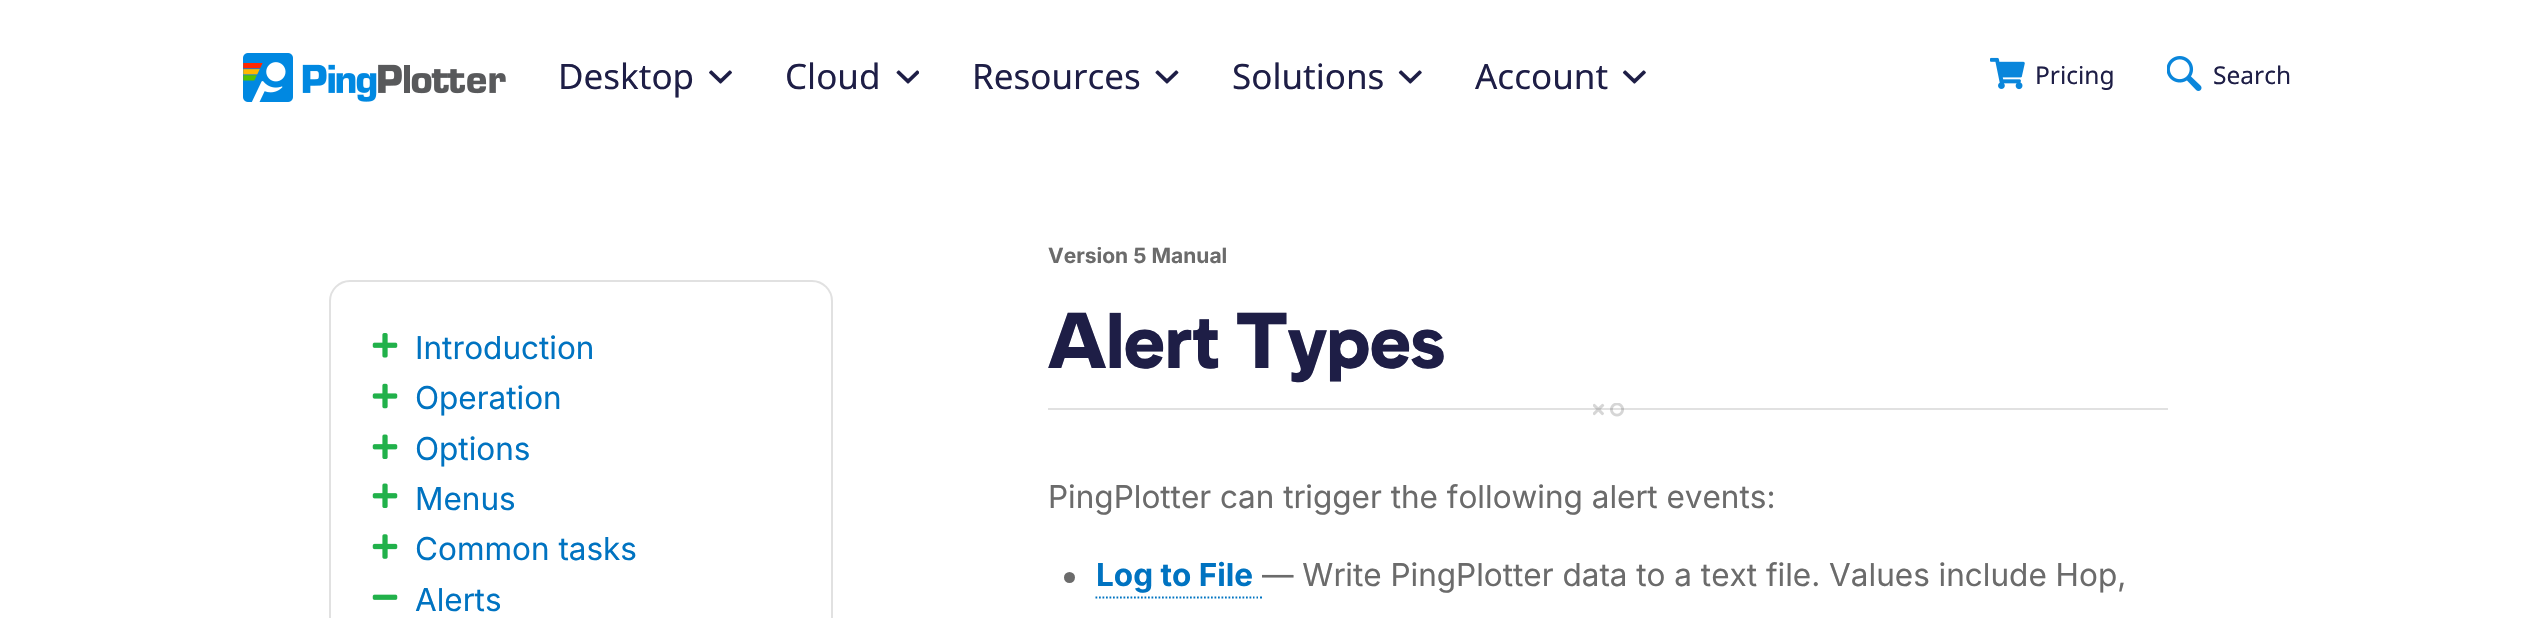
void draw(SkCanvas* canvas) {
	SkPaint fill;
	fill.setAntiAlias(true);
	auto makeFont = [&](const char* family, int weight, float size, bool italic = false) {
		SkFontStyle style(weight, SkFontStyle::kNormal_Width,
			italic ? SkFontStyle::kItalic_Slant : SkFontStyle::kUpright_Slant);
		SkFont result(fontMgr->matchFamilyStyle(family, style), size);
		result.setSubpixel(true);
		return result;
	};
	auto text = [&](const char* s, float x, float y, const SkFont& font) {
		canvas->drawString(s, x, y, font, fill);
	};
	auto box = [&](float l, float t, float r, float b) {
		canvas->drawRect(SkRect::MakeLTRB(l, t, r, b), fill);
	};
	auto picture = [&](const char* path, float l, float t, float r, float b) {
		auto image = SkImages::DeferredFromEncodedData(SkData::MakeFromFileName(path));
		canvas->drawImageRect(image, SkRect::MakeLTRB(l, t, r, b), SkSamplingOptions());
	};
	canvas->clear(0xFFFFFFFF);
	picture("image0.png", 243, 53, 506, 102);
	picture("image1.png", 709, 70, 732, 84);
	picture("image2.png", 896, 70, 919, 84);
	picture("image3.png", 1155, 70, 1179, 84);
	picture("image4.png", 1398, 70, 1422, 84);
	picture("image5.png", 1622, 70, 1646, 84);
	picture("image6.png", 1990, 57, 2025, 90);
	picture("image7.png", 2167, 56, 2202, 91);
	fill.setStyle(SkPaint::kStroke_Style);
	fill.setStrokeWidth(2);
	fill.setColor(0xFFE1E1E1);
	canvas->drawRoundRect(SkRect::MakeLTRB(330, 281, 832, 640), 20, 20, fill);
	picture("image8.png", 372, 333, 398, 358);
	picture("image9.png", 372, 383, 398, 409);
	picture("image10.png", 372, 434, 398, 459);
	picture("image10.png", 372, 483, 398, 508);
	picture("image11.png", 372, 534, 398, 559);
	picture("image12.png", 372, 594, 398, 600);
	picture("image13.png", 1593, 403, 1624, 417);
	fill.setStyle(SkPaint::kFill_Style);
	fill.setColor(0x336B6B6B);
	box(1048, 408, 1608, 410);
	box(1608, 408, 2168, 410);
	fill.setColor(0xFF6B6B6B);
	canvas->drawCircle(1069.5f, 577.5f, 5.5f, fill);
	fill.setStyle(SkPaint::kStroke_Style);
	fill.setStrokeWidth(1.8f);
	fill.setColor(0xFF0073C1);
	fill.setPathEffect(SkDashPathEffect::Make({{1.75f, 1.75f}}, 0));
	canvas->drawPath(SkPathBuilder().moveTo(1095.5f, 597.5f).lineTo(1253, 597.5f).detach(), fill);
	fill.setPathEffect(nullptr);
	canvas->drawPath(SkPathBuilder().moveTo(1253, 597.5f).lineTo(1254.5f, 597.5f).moveTo(1256.5f, 597.5f).lineTo(1258, 597.5f).moveTo(1260, 597.5f).lineTo(1262, 597.5f).detach(), fill);
	auto font1 = makeFont("Noto Sans", 400, 35);
	fill.setStyle(SkPaint::kFill_Style);
	fill.setColor(0xFF1E1E46);
	text("Desktop", 558, 89, font1);
	text("Cloud", 785, 89, font1);
	text("Resources", 972, 89, font1);
	text("Solutions", 1232, 89, font1);
	text("Account", 1475, 89, font1);
	auto font2 = makeFont("Noto Sans", 400, 24.5f);
	text("Pricing", 2035, 84, font2);
	text("Search", 2213, 84, font2);
	auto font3 = makeFont("Inter", 400, 31.5f);
	fill.setColor(0xFF0073C1);
	text("Introduction", 415, 359, font3);
	text("Operation", 415, 409, font3);
	text("Options", 415, 460, font3);
	text("Menus", 415, 510, font3);
	text("Common tasks", 415, 560, font3);
	text("Alerts", 415, 611, font3);
	auto font4 = makeFont("Inter", 700, 21);
	fill.setColor(0xFF6B6B6B);
	text("Version 5 Manual", 1048, 263, font4);
	auto font5 = makeFont("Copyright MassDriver", 700, 78.75f);
	fill.setColor(0xFF1E1E46);
	text("Alert Types", 1048, 368, font5);
	fill.setColor(0xFF6B6B6B);
	text("PingPlotter can trigger the following alert events:", 1048, 508, font3);
	auto font6 = makeFont("Inter", 700, 31.5f);
	fill.setColor(0xFF0073C1);
	text("Log to File", 1096, 586, font6);
	fill.setColor(0xFF6B6B6B);
	text("— Write PingPlotter data to a text file. Values include Hop,", 1262, 586, font3);
}
